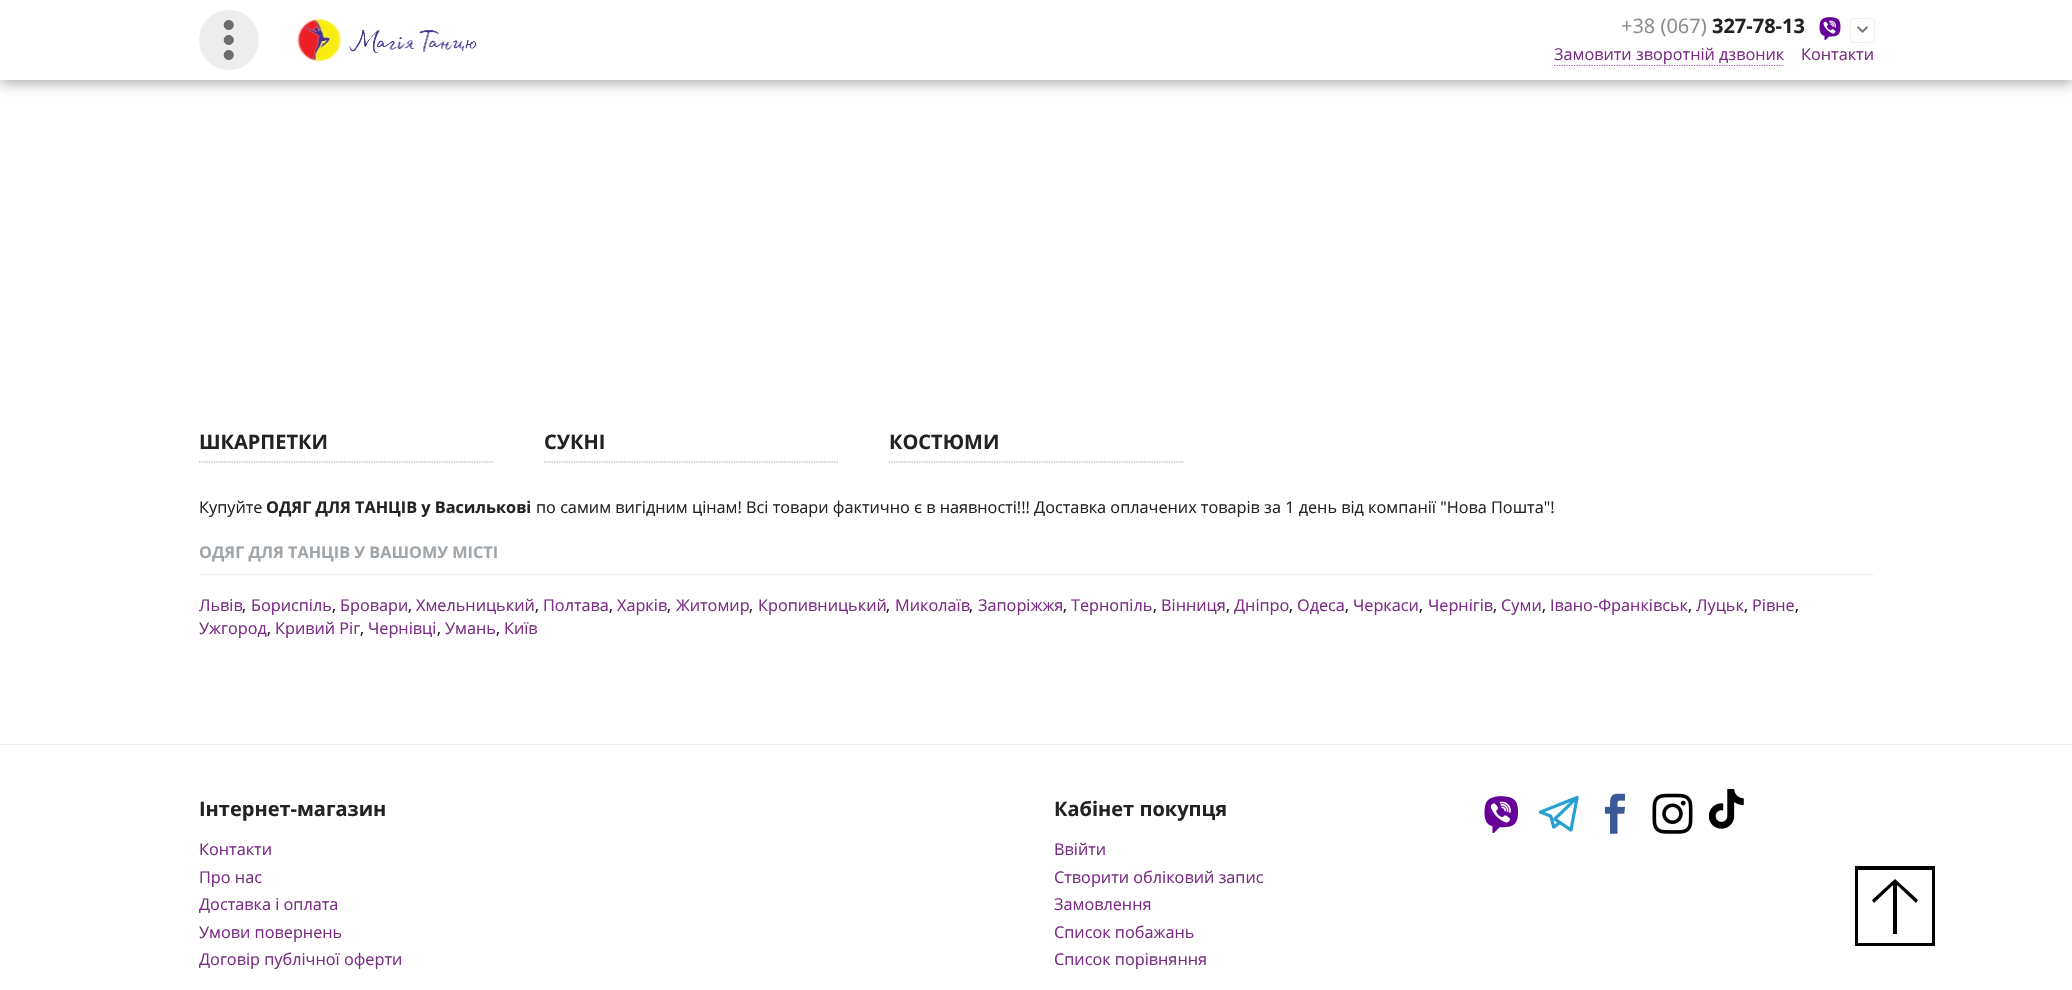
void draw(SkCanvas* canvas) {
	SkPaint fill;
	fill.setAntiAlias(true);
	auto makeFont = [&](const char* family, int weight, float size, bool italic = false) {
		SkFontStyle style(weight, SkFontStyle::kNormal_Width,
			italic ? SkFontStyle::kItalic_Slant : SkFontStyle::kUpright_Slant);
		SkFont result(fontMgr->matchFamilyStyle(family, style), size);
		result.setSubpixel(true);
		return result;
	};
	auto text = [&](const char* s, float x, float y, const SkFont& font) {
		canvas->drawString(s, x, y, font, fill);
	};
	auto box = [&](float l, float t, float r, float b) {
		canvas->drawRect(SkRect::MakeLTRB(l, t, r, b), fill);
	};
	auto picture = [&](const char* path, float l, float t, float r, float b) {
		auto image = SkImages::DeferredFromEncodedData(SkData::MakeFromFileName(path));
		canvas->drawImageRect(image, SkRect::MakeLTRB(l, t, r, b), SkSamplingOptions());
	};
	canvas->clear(0xFFFFFFFF);
	fill.setColor(0x4D000000);
	fill.setMaskFilter(SkMaskFilter::MakeBlur(kNormal_SkBlurStyle, 6));
	canvas->drawRect(SkRect::MakeLTRB(0, 4, 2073, 84), fill);
	fill.setMaskFilter(nullptr);
	fill.setColor(0xFFFFFFFF);
	box(0, 0, 2072, 80);
	fill.setColor(0xFFEDEDED);
	canvas->drawCircle(229, 40, 30, fill);
	picture("image0.png", 223, 20, 234, 60);
	picture("image1.png", 297, 18, 477, 62);
	picture("image2.png", 1819, 17, 1841, 41);
	fill.setStyle(SkPaint::kStroke_Style);
	fill.setStrokeWidth(1);
	canvas->drawRoundRect(SkRect::MakeLTRB(1850.5f, 18.5f, 1874.5f, 42.5f), 3.5f, 3.5f, fill);
	picture("image3.png", 1857, 26, 1868, 33);
	fill.setStrokeWidth(1.2f);
	fill.setColor(0xFFB751C6);
	fill.setPathEffect(SkDashPathEffect::Make({{1.25f, 1.25f}}, 0));
	canvas->drawPath(SkPathBuilder().moveTo(1554, 65.5f).lineTo(1784, 65.5f).detach(), fill);
	fill.setPathEffect(nullptr);
	fill.setColor(0xFFA3A3A3);
	fill.setPathEffect(SkDashPathEffect::Make({{1.25f, 1.25f}}, 0));
	canvas->drawPath(SkPathBuilder().moveTo(199, 462).lineTo(494, 462).detach(), fill);
	fill.setPathEffect(nullptr);
	fill.setPathEffect(SkDashPathEffect::Make({{1.25f, 1.25f}}, 0));
	canvas->drawPath(SkPathBuilder().moveTo(544, 462).lineTo(839, 462).detach(), fill);
	fill.setPathEffect(nullptr);
	fill.setPathEffect(SkDashPathEffect::Make({{1.25f, 1.25f}}, 0));
	canvas->drawPath(SkPathBuilder().moveTo(889, 462).lineTo(1184, 462).detach(), fill);
	fill.setPathEffect(nullptr);
	fill.setStyle(SkPaint::kFill_Style);
	fill.setColor(0xFFEEEEEE);
	box(199, 574, 1874, 575);
	fill.setColor(0xFFEDEDED);
	box(0, 744, 2072, 745);
	picture("image4.png", 1484, 796, 1519, 833);
	picture("image5.png", 1538, 795, 1579, 832);
	picture("image6.png", 1604, 793, 1625, 834);
	picture("image7.png", 1652, 793, 1693, 834);
	picture("image8.png", 1709, 789, 1744, 829);
	fill.setColor(0xFF000000);
	canvas->drawPath(SkPathBuilder().moveTo(1855, 866).lineTo(1935, 866).lineTo(1935, 946).lineTo(1855, 946).close().moveTo(1932, 943).lineTo(1932, 870).lineTo(1858, 870).lineTo(1858, 943).close().moveTo(1893, 885).lineTo(1874, 903).lineTo(1872, 900).lineTo(1895, 879).lineTo(1918, 900).lineTo(1916, 903).lineTo(1897, 885).lineTo(1897, 934).lineTo(1893, 934).close().detach(), fill);
	auto font1 = makeFont("Open Sans", 400, 20);
	fill.setColor(0xFF898989);
	text("+38 (067)", 1621, 33, font1);
	auto font2 = makeFont("Open Sans", 700, 20);
	fill.setColor(0xFF232323);
	text("327-78-13", 1712, 33, font2);
	auto font3 = makeFont("Open Sans", 400, 16.25f);
	fill.setColor(0xFF7A2C85);
	text("Замовити зворотній дзвоник", 1554, 60, font3);
	text("Контакти", 1801, 60, font3);
	fill.setColor(0xFF232323);
	text("ШКАРПЕТКИ", 199, 449, font2);
	text("СУКНІ", 544, 449, font2);
	text("КОСТЮМИ", 889, 449, font2);
	text("Купуйте", 199, 513, font3);
	auto font4 = makeFont("Open Sans", 700, 16.25f);
	text("ОДЯГ ДЛЯ ТАНЦІВ у Василькові", 266, 513, font4);
	text("по самим вигідним цінам! Всі товари фактично є в наявності!!! Доставка оплачених товарів за 1 день від компанії \"Нова Пошта\"!", 536, 513, font3);
	fill.setColor(0xFFA1A6AA);
	text("ОДЯГ ДЛЯ ТАНЦІВ У ВАШОМУ МІСТІ", 199, 558, font4);
	fill.setColor(0xFF7A2C85);
	text("Львів", 199, 611, font3);
	fill.setColor(0xFF232323);
	text(",", 242, 611, font3);
	fill.setColor(0xFF7A2C85);
	text("Бориспіль", 251, 611, font3);
	fill.setColor(0xFF232323);
	text(",", 332, 611, font3);
	fill.setColor(0xFF7A2C85);
	text("Бровари", 340, 611, font3);
	fill.setColor(0xFF232323);
	text(",", 408, 611, font3);
	fill.setColor(0xFF7A2C85);
	text("Хмельницький", 416, 611, font3);
	fill.setColor(0xFF232323);
	text(",", 535, 611, font3);
	fill.setColor(0xFF7A2C85);
	text("Полтава", 543, 611, font3);
	fill.setColor(0xFF232323);
	text(",", 609, 611, font3);
	fill.setColor(0xFF7A2C85);
	text("Харків", 617, 611, font3);
	fill.setColor(0xFF232323);
	text(",", 667, 611, font3);
	fill.setColor(0xFF7A2C85);
	text("Житомир", 676, 611, font3);
	fill.setColor(0xFF232323);
	text(",", 749, 611, font3);
	fill.setColor(0xFF7A2C85);
	text("Кропивницький", 758, 611, font3);
	fill.setColor(0xFF232323);
	text(",", 886, 611, font3);
	fill.setColor(0xFF7A2C85);
	text("Миколаїв", 895, 611, font3);
	fill.setColor(0xFF232323);
	text(",", 969, 611, font3);
	fill.setColor(0xFF7A2C85);
	text("Запоріжжя", 978, 611, font3);
	fill.setColor(0xFF232323);
	text(",", 1063, 611, font3);
	fill.setColor(0xFF7A2C85);
	text("Тернопіль", 1071, 611, font3);
	fill.setColor(0xFF232323);
	text(",", 1153, 611, font3);
	fill.setColor(0xFF7A2C85);
	text("Вінниця", 1161, 611, font3);
	fill.setColor(0xFF232323);
	text(",", 1226, 611, font3);
	fill.setColor(0xFF7A2C85);
	text("Дніпро", 1234, 611, font3);
	fill.setColor(0xFF232323);
	text(",", 1289, 611, font3);
	fill.setColor(0xFF7A2C85);
	text("Одеса", 1297, 611, font3);
	fill.setColor(0xFF232323);
	text(",", 1345, 611, font3);
	fill.setColor(0xFF7A2C85);
	text("Черкаси", 1353, 611, font3);
	fill.setColor(0xFF232323);
	text(",", 1419, 611, font3);
	fill.setColor(0xFF7A2C85);
	text("Чернігів", 1428, 611, font3);
	fill.setColor(0xFF232323);
	text(",", 1493, 611, font3);
	fill.setColor(0xFF7A2C85);
	text("Суми", 1501, 611, font3);
	fill.setColor(0xFF232323);
	text(",", 1542, 611, font3);
	fill.setColor(0xFF7A2C85);
	text("Івано-Франківськ", 1550, 611, font3);
	fill.setColor(0xFF232323);
	text(",", 1688, 611, font3);
	fill.setColor(0xFF7A2C85);
	text("Луцьк", 1696, 611, font3);
	fill.setColor(0xFF232323);
	text(",", 1744, 611, font3);
	fill.setColor(0xFF7A2C85);
	text("Рівне", 1752, 611, font3);
	fill.setColor(0xFF232323);
	text(",", 1795, 611, font3);
	fill.setColor(0xFF7A2C85);
	text("Ужгород", 199, 634, font3);
	text("Кривий Ріг", 275, 634, font3);
	text("Чернівці", 368, 634, font3);
	text("Умань", 445, 634, font3);
	text("Київ", 504, 634, font3);
	fill.setColor(0xFF232323);
	text(",", 267, 634, font3);
	text(",", 360, 634, font3);
	text(",", 437, 634, font3);
	text(",", 496, 634, font3);
	text("Інтернет-магазин", 199, 816, font2);
	fill.setColor(0xFF7A2C85);
	text("Контакти", 199, 855, font3);
	text("Про нас", 199, 883, font3);
	text("Доставка і оплата", 199, 910, font3);
	text("Умови повернень", 199, 938, font3);
	text("Договір публічної оферти", 199, 965, font3);
	fill.setColor(0xFF232323);
	text("Кабінет покупця", 1054, 816, font2);
	fill.setColor(0xFF7A2C85);
	text("Ввійти", 1054, 855, font3);
	text("Створити обліковий запис", 1054, 883, font3);
	text("Замовлення", 1054, 910, font3);
	text("Список побажань", 1054, 938, font3);
	text("Cписок порівняння", 1054, 965, font3);
}
